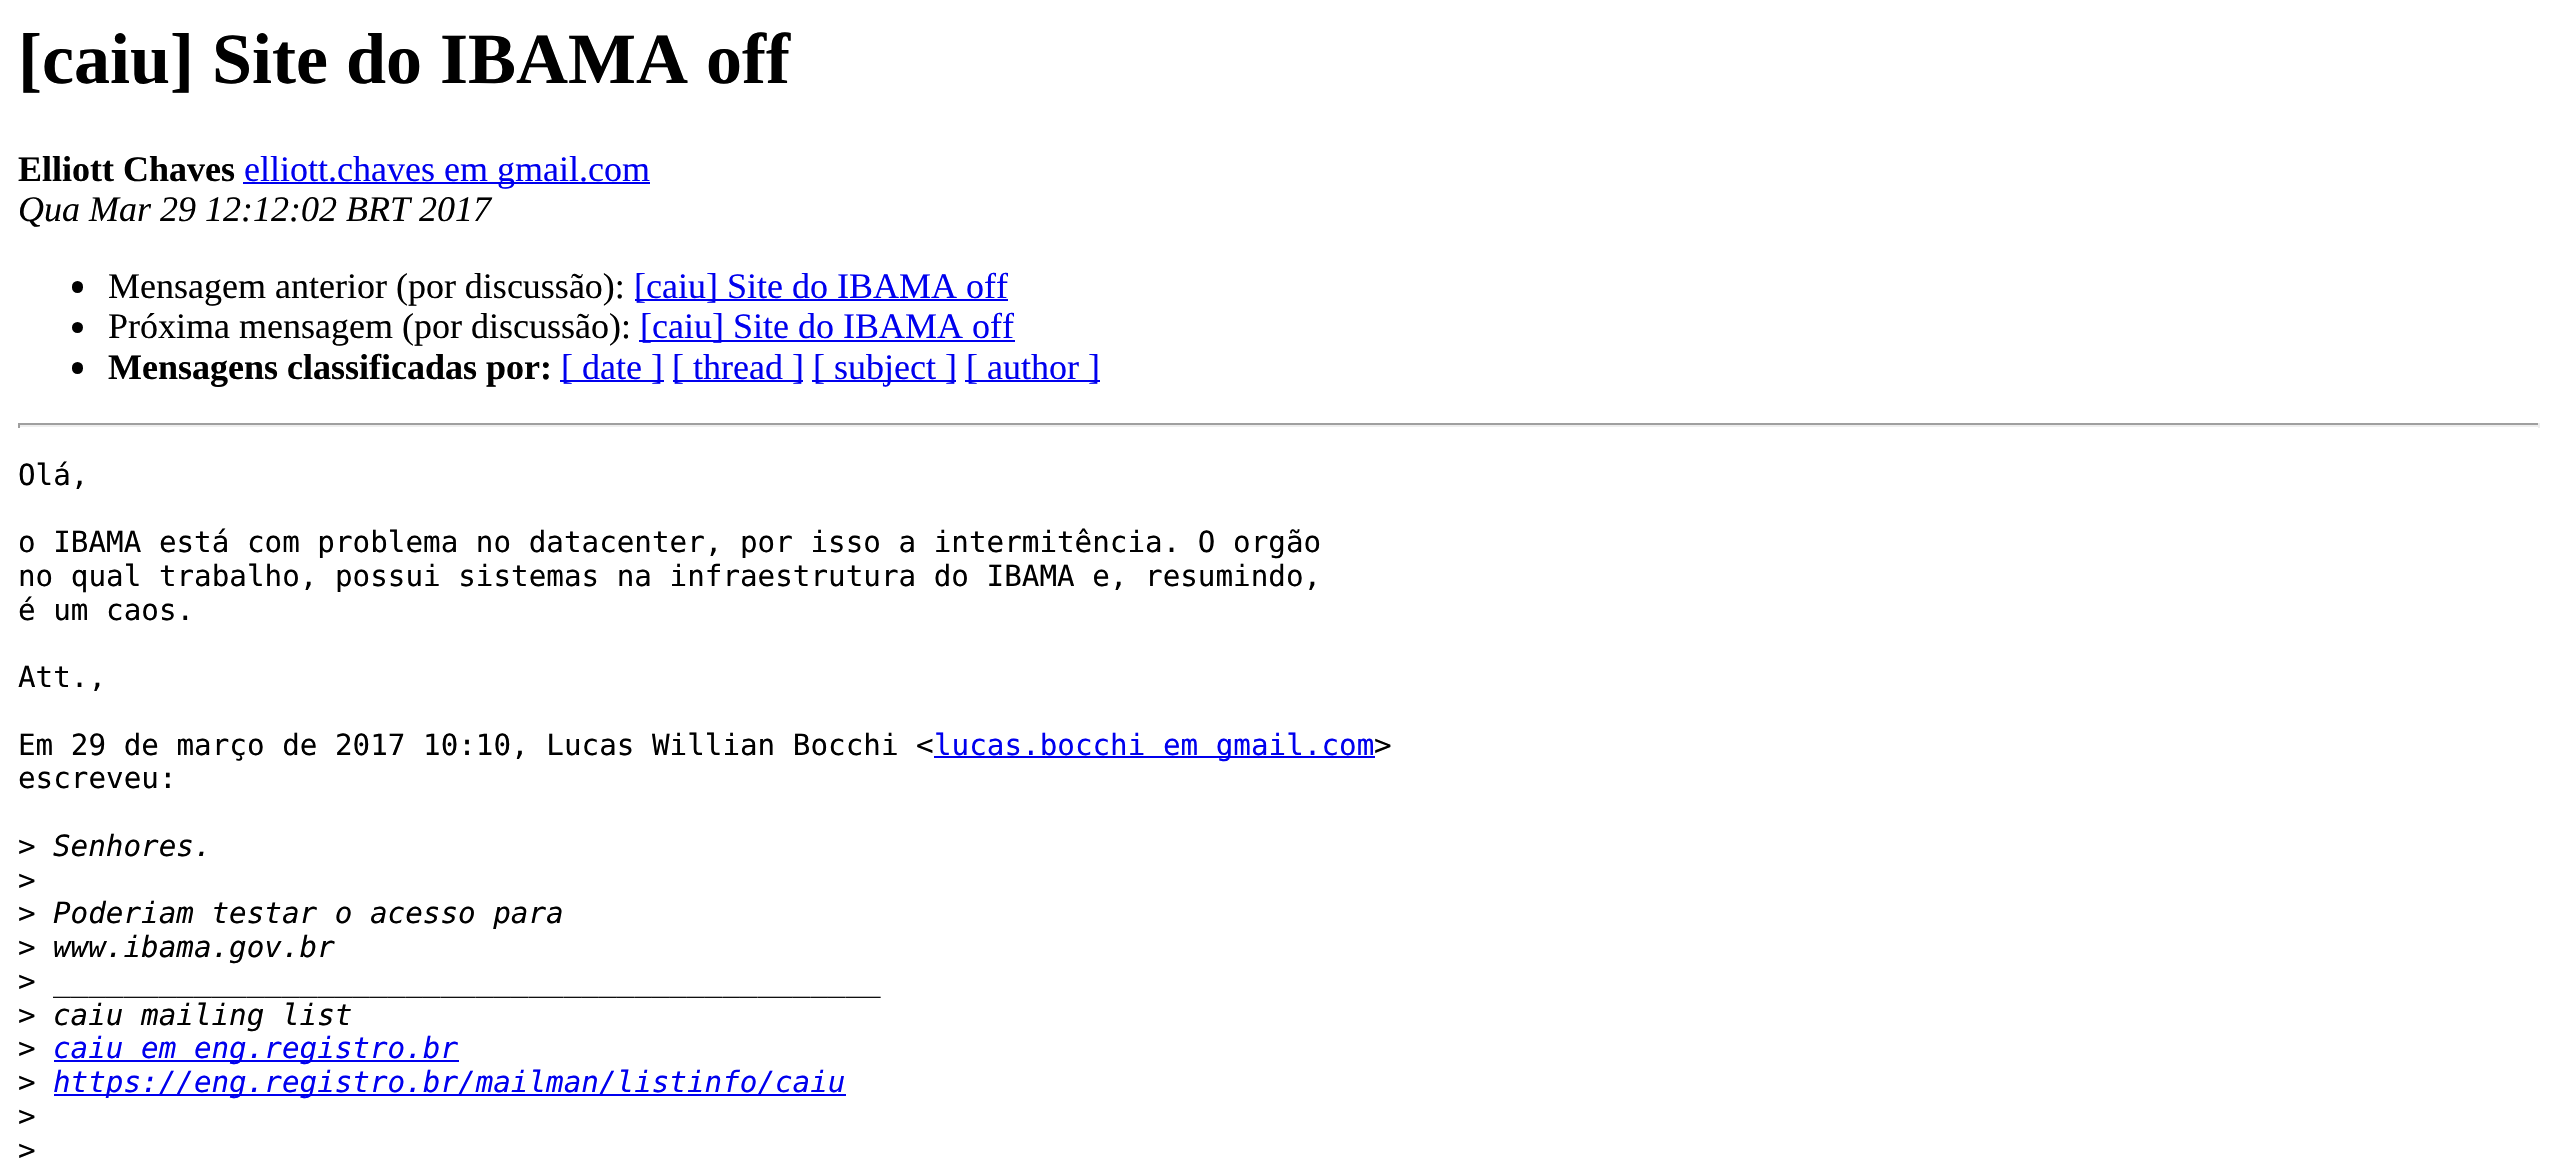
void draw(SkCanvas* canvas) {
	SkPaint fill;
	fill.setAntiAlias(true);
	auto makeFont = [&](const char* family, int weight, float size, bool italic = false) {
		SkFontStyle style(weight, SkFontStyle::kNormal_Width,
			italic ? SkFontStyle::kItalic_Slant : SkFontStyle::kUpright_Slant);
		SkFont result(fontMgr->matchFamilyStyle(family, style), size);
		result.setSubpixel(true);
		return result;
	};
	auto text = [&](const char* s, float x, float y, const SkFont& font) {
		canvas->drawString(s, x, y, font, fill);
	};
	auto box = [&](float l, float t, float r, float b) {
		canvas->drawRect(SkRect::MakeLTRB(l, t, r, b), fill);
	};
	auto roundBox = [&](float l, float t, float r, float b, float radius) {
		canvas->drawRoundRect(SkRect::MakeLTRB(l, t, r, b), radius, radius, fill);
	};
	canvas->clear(0xFFFFFFFF);
	fill.setColor(0xFF0000EE);
	box(243, 182, 650, 184);
	fill.setColor(0xFF000000);
	roundBox(72, 281, 83, 293, 5.5f);
	fill.setColor(0xFF0000EE);
	box(635, 299, 1008, 301);
	fill.setColor(0xFF000000);
	canvas->drawCircle(77.5f, 327.5f, 5.5f, fill);
	fill.setColor(0xFF0000EE);
	box(639, 340, 1015, 342);
	fill.setColor(0xFF000000);
	roundBox(72, 362, 83, 374, 5.5f);
	fill.setColor(0xFF0000EE);
	box(560, 380, 664, 382);
	box(673, 380, 803, 382);
	box(812, 380, 956, 382);
	box(965, 380, 1100, 382);
	fill.setColor(0xFF9F9F9F);
	box(18, 423, 2540, 425);
	fill.setColor(0xFFEEEEEE);
	box(2538, 423, 2540, 428);
	box(18, 425, 2540, 427);
	fill.setColor(0xFF9F9F9F);
	box(18, 423, 20, 428);
	fill.setColor(0xFF0000EE);
	box(934, 756, 1375, 758);
	box(54, 1060, 459, 1062);
	box(54, 1094, 846, 1096);
	auto font1 = makeFont("Liberation Serif", 700, 72);
	fill.setColor(0xFF000000);
	text("[caiu] Site do IBAMA off", 18, 83, font1);
	auto font2 = makeFont("Liberation Serif", 700, 36);
	text("Elliott Chaves", 18, 181, font2);
	auto font3 = makeFont("Liberation Serif", 400, 36);
	fill.setColor(0xFF0000EE);
	text("elliott.chaves em gmail.com", 244, 181, font3);
	auto font4 = makeFont("Liberation Serif", 400, 36, true);
	fill.setColor(0xFF000000);
	text("Qua Mar 29 12:12:02 BRT 2017", 18, 221, font4);
	text("Mensagem anterior (por discussão):", 108, 298, font3);
	fill.setColor(0xFF0000EE);
	text("[caiu] Site do IBAMA off", 634, 298, font3);
	fill.setColor(0xFF000000);
	text("Próxima mensagem (por discussão):", 108, 338, font3);
	fill.setColor(0xFF0000EE);
	text("[caiu] Site do IBAMA off", 640, 338, font3);
	fill.setColor(0xFF000000);
	text("Mensagens classificadas por:", 108, 379, font2);
	fill.setColor(0xFF0000EE);
	text("[ date ]", 561, 379, font3);
	text("[ thread ]", 672, 379, font3);
	text("[ subject ]", 813, 379, font3);
	text("[ author ]", 966, 379, font3);
	auto font5 = makeFont("DejaVu Sans Mono", 400, 29.25f);
	fill.setColor(0xFF000000);
	text("Olá,", 18, 485, font5);
	text("o IBAMA está com problema no datacenter, por isso a intermitência. O orgão", 18, 552, font5);
	text("no qual trabalho, possui sistemas na infraestrutura do IBAMA e, resumindo,", 18, 586, font5);
	text("é um caos.", 18, 620, font5);
	text("Att.,", 18, 687, font5);
	text("Em 29 de março de 2017 10:10, Lucas Willian Bocchi <", 18, 755, font5);
	fill.setColor(0xFF0000EE);
	text("lucas.bocchi em gmail.com", 934, 755, font5);
	fill.setColor(0xFF000000);
	text(">", 1374, 755, font5);
	text("escreveu:", 18, 788, font5);
	text(">", 18, 856, font5);
	auto font6 = makeFont("DejaVu Sans Mono", 400, 29.25f, true);
	text("Senhores.", 53, 856, font6);
	text(">", 18, 890, font5);
	text(">", 18, 923, font5);
	text("Poderiam testar o acesso para", 53, 923, font6);
	text(">", 18, 957, font5);
	text("www.ibama.gov.br", 53, 957, font6);
	text(">", 18, 991, font5);
	text("_______________________________________________", 53, 991, font6);
	text(">", 18, 1025, font5);
	text("caiu mailing list", 53, 1025, font6);
	text(">", 18, 1058, font5);
	fill.setColor(0xFF0000EE);
	text("caiu em eng.registro.br", 53, 1058, font6);
	fill.setColor(0xFF000000);
	text(">", 18, 1092, font5);
	fill.setColor(0xFF0000EE);
	text("https://eng.registro.br/mailman/listinfo/caiu", 53, 1092, font6);
	fill.setColor(0xFF000000);
	text(">", 18, 1126, font5);
	text(">", 18, 1160, font5);
}
